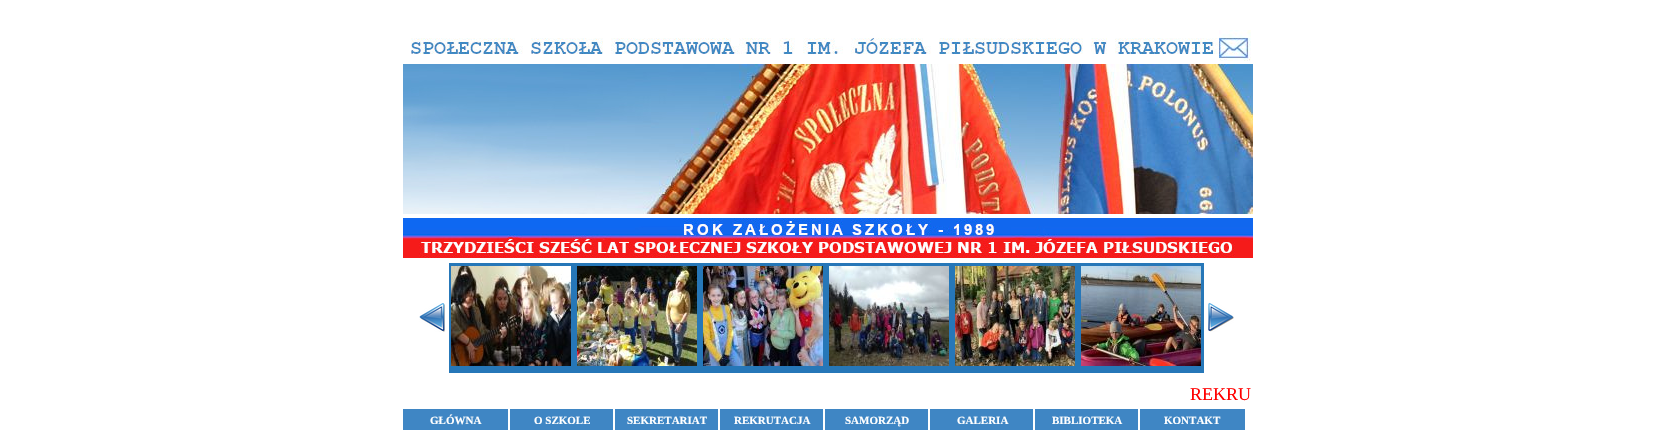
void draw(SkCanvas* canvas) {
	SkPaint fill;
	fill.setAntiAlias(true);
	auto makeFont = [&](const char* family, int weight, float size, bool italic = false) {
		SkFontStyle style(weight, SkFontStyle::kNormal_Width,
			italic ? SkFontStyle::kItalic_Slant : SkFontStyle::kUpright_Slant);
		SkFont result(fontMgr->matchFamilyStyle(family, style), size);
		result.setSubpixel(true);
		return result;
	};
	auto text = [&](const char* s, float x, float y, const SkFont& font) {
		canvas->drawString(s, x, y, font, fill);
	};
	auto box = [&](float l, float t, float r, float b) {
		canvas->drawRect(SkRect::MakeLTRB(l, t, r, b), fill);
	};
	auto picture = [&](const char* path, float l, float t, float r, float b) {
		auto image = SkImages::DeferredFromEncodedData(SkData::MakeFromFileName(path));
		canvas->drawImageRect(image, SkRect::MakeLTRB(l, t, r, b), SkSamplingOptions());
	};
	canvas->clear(0xFFFFFFFF);
	picture("image0.png", 411, 38, 1219, 54);
	picture("image1.png", 1219, 30, 1251, 61);
	picture("image2.png", 403, 64, 1253, 214);
	picture("image3.png", 403, 218, 1253, 258);
	picture("image4.png", 419, 303, 445, 332);
	fill.setColor(0xFF2677B8);
	box(449, 263, 1204, 373);
	picture("image5.png", 451, 266, 571, 366);
	picture("image6.png", 577, 266, 697, 366);
	picture("image7.png", 703, 266, 823, 366);
	picture("image8.png", 829, 266, 949, 366);
	picture("image9.png", 955, 266, 1075, 366);
	picture("image10.png", 1081, 266, 1201, 366);
	picture("image11.png", 1208, 302, 1234, 332);
	fill.setColor(0xFF3F86C4);
	box(403, 409, 508, 430);
	box(510, 409, 613, 430);
	box(615, 409, 718, 430);
	box(720, 409, 823, 430);
	box(825, 409, 928, 430);
	box(930, 409, 1033, 430);
	box(1035, 409, 1138, 430);
	box(1140, 409, 1245, 430);
	auto font1 = makeFont("Liberation Serif", 400, 18);
	fill.setColor(0xFFFF0000);
	text("REKRU", 1190, 400, font1);
	auto font2 = makeFont("Liberation Serif", 700, 11);
	fill.setColor(0xFFFFFFFF);
	text("GŁÓWNA", 430, 424, font2);
	text("O SZKOLE", 534, 424, font2);
	text("SEKRETARIAT", 627, 424, font2);
	text("REKRUTACJA", 734, 424, font2);
	text("SAMORZĄD", 845, 424, font2);
	text("GALERIA", 957, 424, font2);
	text("BIBLIOTEKA", 1052, 424, font2);
	text("KONTAKT", 1164, 424, font2);
}
